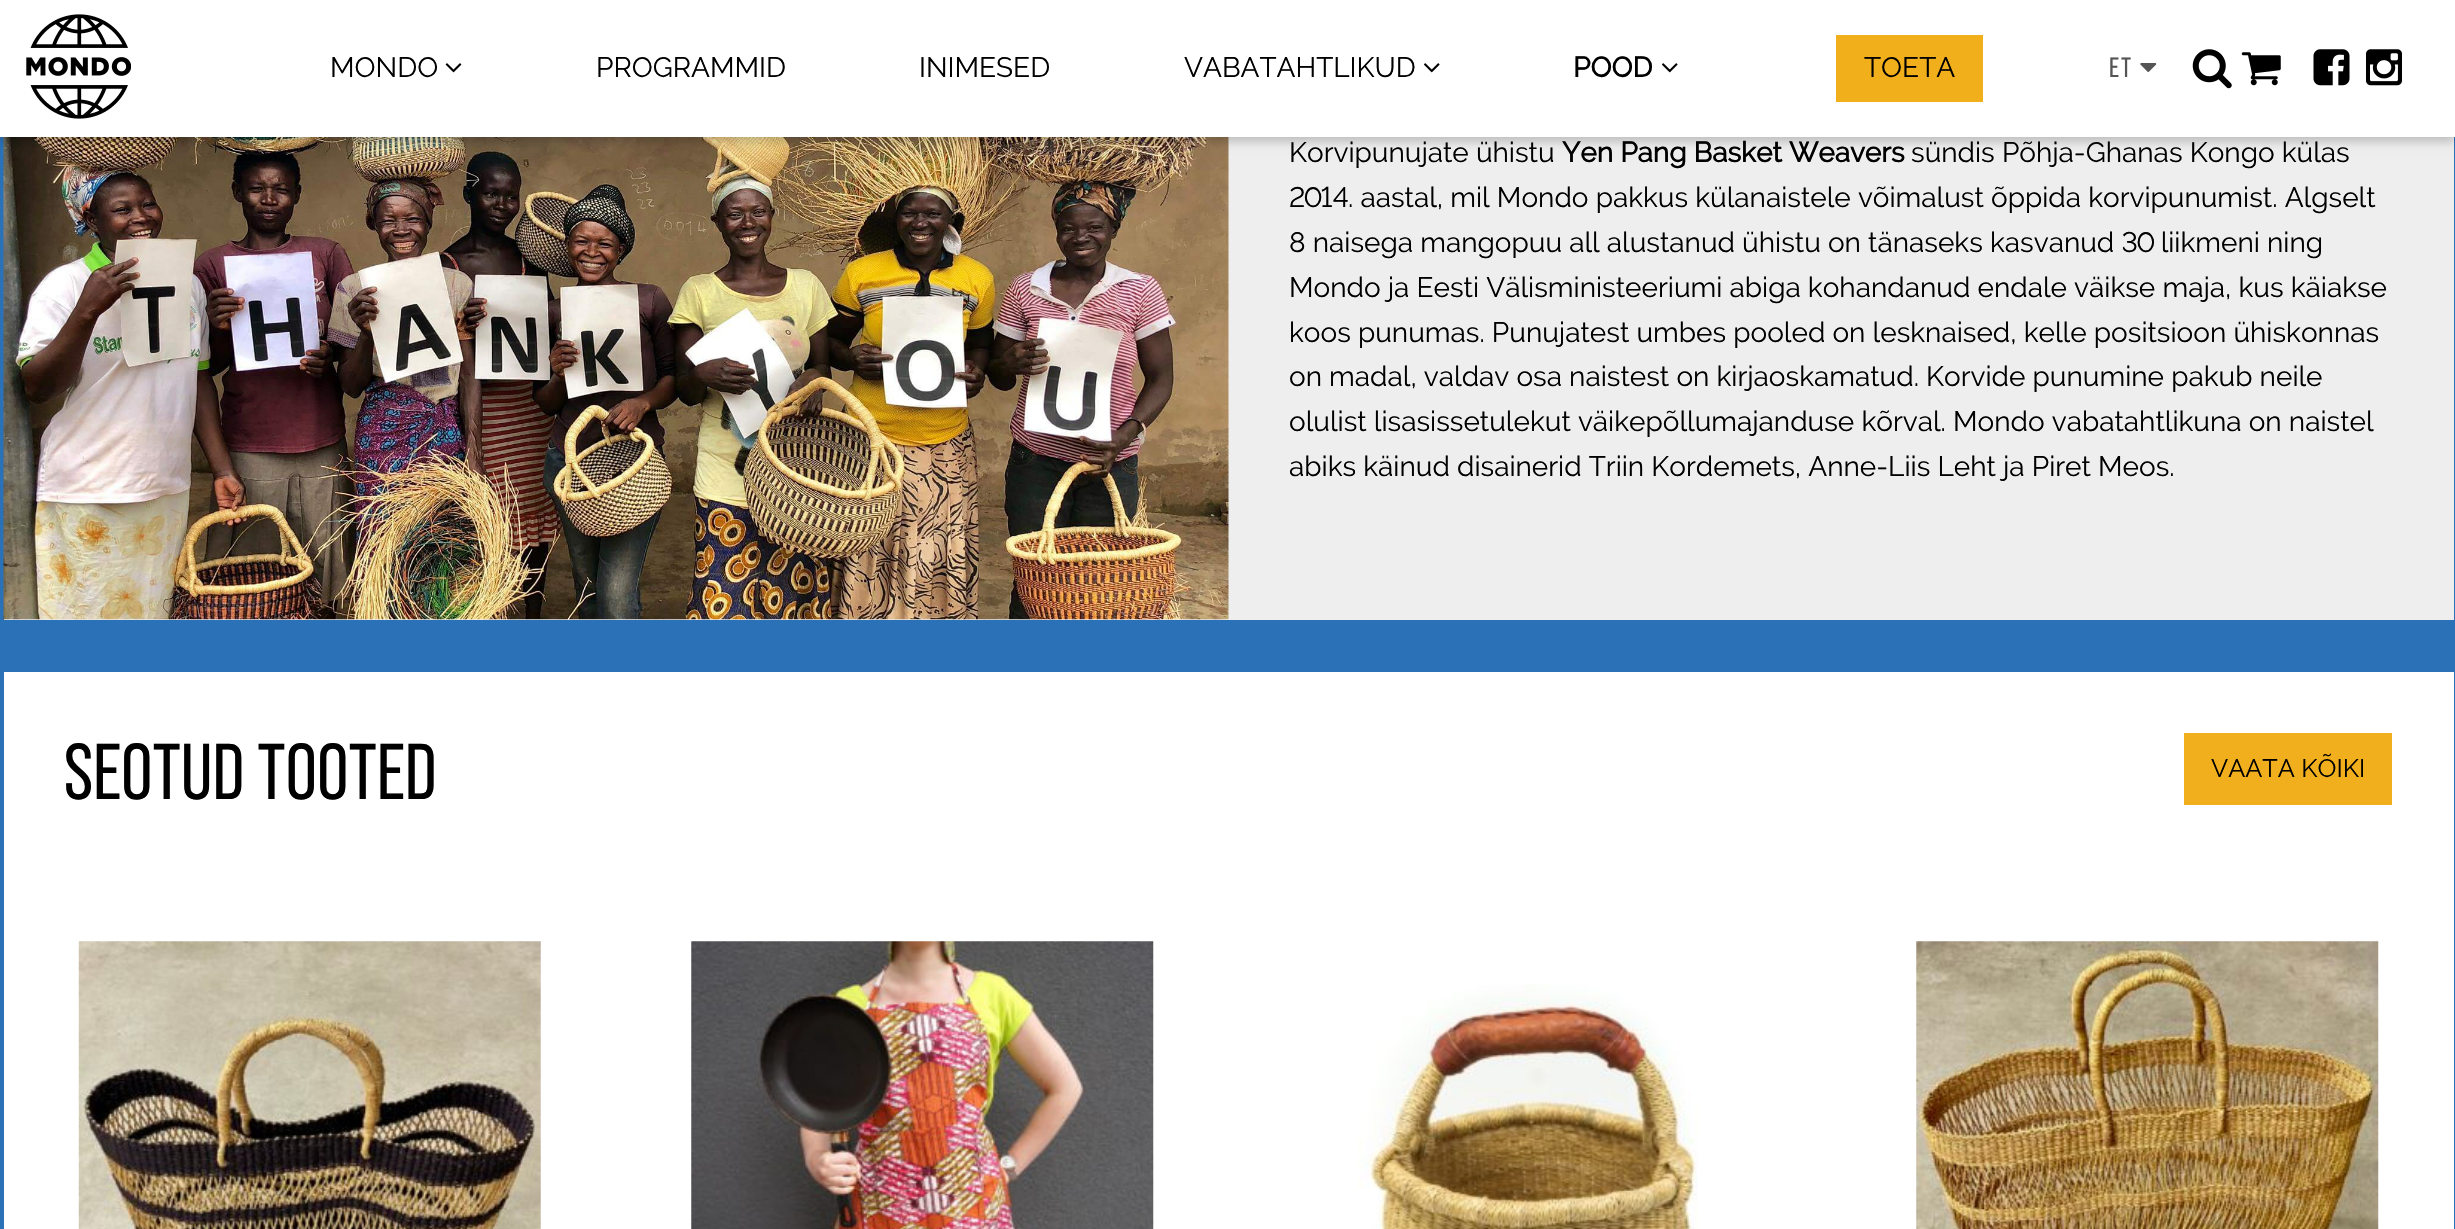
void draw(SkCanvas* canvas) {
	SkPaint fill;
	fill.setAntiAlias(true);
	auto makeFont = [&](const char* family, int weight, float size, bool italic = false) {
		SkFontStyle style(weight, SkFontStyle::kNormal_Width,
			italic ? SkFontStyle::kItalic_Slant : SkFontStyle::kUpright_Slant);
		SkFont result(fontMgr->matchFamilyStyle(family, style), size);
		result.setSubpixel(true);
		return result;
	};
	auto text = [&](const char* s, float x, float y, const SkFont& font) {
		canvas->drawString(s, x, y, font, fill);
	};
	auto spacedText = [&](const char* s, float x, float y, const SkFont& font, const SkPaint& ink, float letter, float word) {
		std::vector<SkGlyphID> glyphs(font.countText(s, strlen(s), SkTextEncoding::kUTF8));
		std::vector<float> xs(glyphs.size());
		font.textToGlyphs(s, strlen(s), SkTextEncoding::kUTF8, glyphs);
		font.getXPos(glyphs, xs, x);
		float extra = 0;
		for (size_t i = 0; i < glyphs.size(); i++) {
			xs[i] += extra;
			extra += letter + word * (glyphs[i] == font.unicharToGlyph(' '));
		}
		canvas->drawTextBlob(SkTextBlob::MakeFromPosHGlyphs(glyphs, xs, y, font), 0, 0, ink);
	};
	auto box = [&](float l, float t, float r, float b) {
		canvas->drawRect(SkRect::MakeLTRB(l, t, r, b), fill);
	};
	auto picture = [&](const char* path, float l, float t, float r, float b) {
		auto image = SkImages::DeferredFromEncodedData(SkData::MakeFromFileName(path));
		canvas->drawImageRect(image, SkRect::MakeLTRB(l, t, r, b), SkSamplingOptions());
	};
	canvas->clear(0xFF2B71B7);
	fill.setColor(0xFFEEEEEE);
	box(4, 137, 2454, 620);
	picture("image8.png", 3, 137, 1229, 620);
	fill.setColor(0x33000000);
	fill.setMaskFilter(SkMaskFilter::MakeBlur(kNormal_SkBlurStyle, 4.5f));
	canvas->drawRect(SkRect::MakeLTRB(0, 5, 2455, 142), fill);
	fill.setMaskFilter(nullptr);
	fill.setColor(0xFFFFFFFF);
	box(0, 0, 2455, 137);
	picture("image0.png", 26, 14, 131, 119);
	picture("image1.png", 445, 63, 462, 73);
	picture("image2.png", 1424, 63, 1440, 73);
	picture("image2.png", 1662, 63, 1678, 73);
	fill.setColor(0xFFF2AF1C);
	box(1836, 35, 1983, 102);
	picture("image3.png", 2140, 63, 2157, 72);
	picture("image4.png", 2192, 49, 2232, 89);
	picture("image5.png", 2241, 52, 2281, 86);
	picture("image6.png", 2313, 49, 2350, 86);
	picture("image7.png", 2366, 49, 2402, 86);
	fill.setColor(0xFFFFFFFF);
	box(4, 672, 2454, 1229);
	fill.setColor(0xFFF2AF1D);
	box(2184, 733, 2392, 805);
	picture("image9.png", 78, 941, 541, 1229);
	picture("image10.png", 691, 941, 1154, 1229);
	picture("image11.png", 1358, 984, 1698, 1229);
	picture("image12.png", 1916, 941, 2379, 1229);
	auto font1 = makeFont("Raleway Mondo", 400, 28);
	fill.setColor(0xFF000000);
	text("MONDO", 330, 77, font1);
	text("PROGRAMMID", 596, 77, font1);
	text("INIMESED", 919, 77, font1);
	text("VABATAHTLIKUD", 1184, 77, font1);
	auto font2 = makeFont("Raleway Mondo", 700, 28);
	text("POOD", 1573, 77, font2);
	text("TOETA", 1864, 77, font1);
	auto font3 = makeFont("Bebas Neue", 400, 28);
	fill.setColor(0xFF555555);
	spacedText("ET", 2109, 77, font3, fill, 2, 0);
	fill.setColor(0xFF000000);
	text("Korvipunujate ühistu", 1289, 162, font1);
	text("Yen Pang Basket Weavers", 1562, 162, font2);
	text("sündis Põhja-Ghanas Kongo külas", 1911, 162, font1);
	text("2014. aastal, mil Mondo pakkus külanaistele võimalust õppida korvipunumist. Algselt", 1289, 207, font1);
	text("8 naisega mangopuu all alustanud ühistu on tänaseks kasvanud 30 liikmeni ning", 1289, 252, font1);
	text("Mondo ja Eesti Välisministeeriumi abiga kohandanud endale väikse maja, kus käiakse", 1289, 297, font1);
	text("koos punumas. Punujatest umbes pooled on lesknaised, kelle positsioon ühiskonnas", 1289, 342, font1);
	text("on madal, valdav osa naistest on kirjaoskamatud. Korvide punumine pakub neile", 1289, 386, font1);
	text("olulist lisasissetulekut väikepõllumajanduse kõrval. Mondo vabatahtlikuna on naistel", 1289, 431, font1);
	text("abiks käinud disainerid Triin Kordemets, Anne-Liis Leht ja Piret Meos.", 1289, 476, font1);
	auto font4 = makeFont("Bebas Neue", 400, 78.75f);
	text("SEOTUD TOOTED", 64, 799, font4);
	auto font5 = makeFont("Raleway Mondo", 400, 25.25f);
	text("VAATA KÕIKI", 2211, 777, font5);
}
